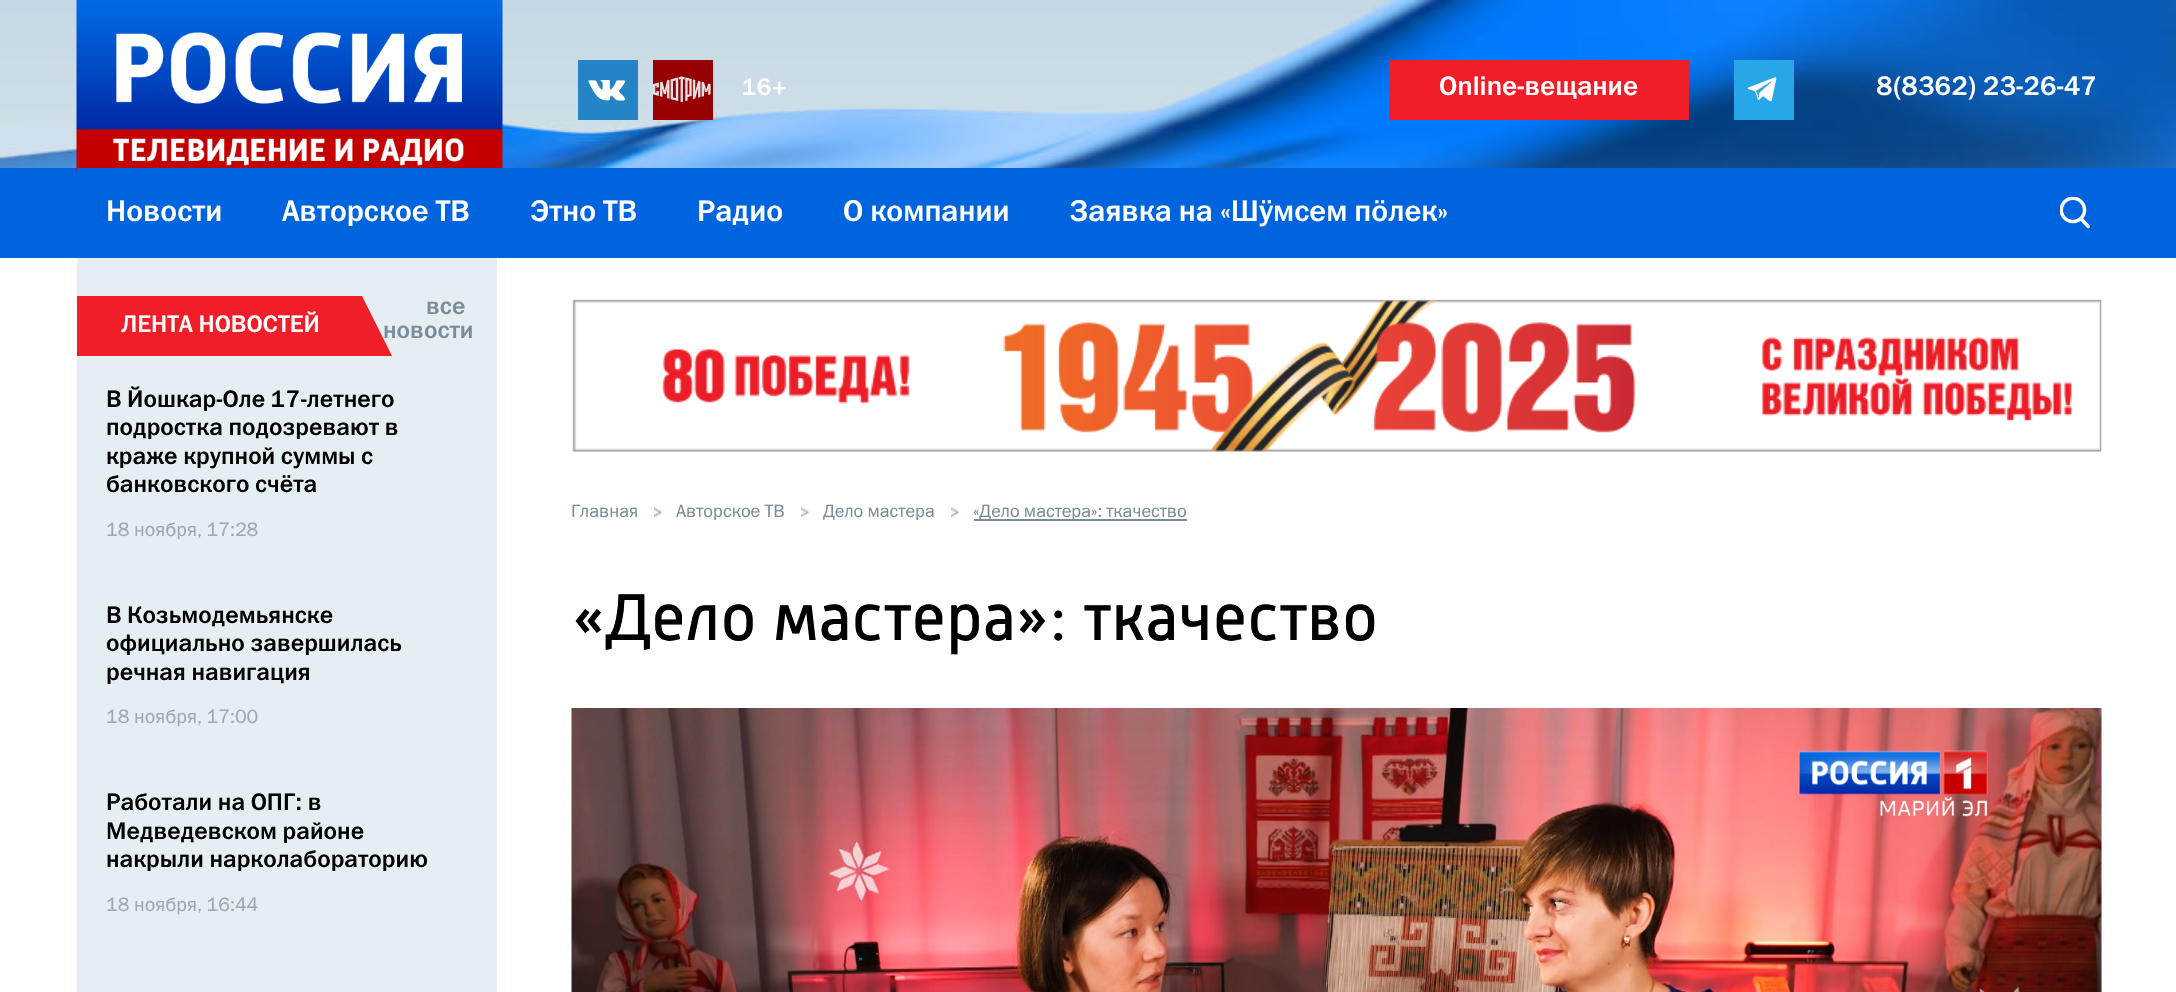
void draw(SkCanvas* canvas) {
	SkPaint fill;
	fill.setAntiAlias(true);
	auto makeFont = [&](const char* family, int weight, float size, bool italic = false) {
		SkFontStyle style(weight, SkFontStyle::kNormal_Width,
			italic ? SkFontStyle::kItalic_Slant : SkFontStyle::kUpright_Slant);
		SkFont result(fontMgr->matchFamilyStyle(family, style), size);
		result.setSubpixel(true);
		return result;
	};
	auto text = [&](const char* s, float x, float y, const SkFont& font) {
		canvas->drawString(s, x, y, font, fill);
	};
	auto box = [&](float l, float t, float r, float b) {
		canvas->drawRect(SkRect::MakeLTRB(l, t, r, b), fill);
	};
	auto picture = [&](const char* path, float l, float t, float r, float b) {
		auto image = SkImages::DeferredFromEncodedData(SkData::MakeFromFileName(path));
		canvas->drawImageRect(image, SkRect::MakeLTRB(l, t, r, b), SkSamplingOptions());
	};
	canvas->clear(0xFFFFFFFF);
	picture("image0.png", 0, 0, 2176, 168);
	fill.setColor(0xFF0064DE);
	box(0, 168, 2176, 258);
	picture("image1.png", 76, 0, 503, 173);
	fill.setColor(0xFF2584C6);
	box(578, 60, 638, 120);
	picture("image2.png", 588, 80, 625, 101);
	fill.setColor(0xFF960000);
	box(653, 60, 713, 120);
	picture("image3.png", 653, 76, 711, 103);
	fill.setColor(0xFFF01E28);
	box(1389, 60, 1689, 120);
	fill.setColor(0xFF27A7E7);
	box(1734, 60, 1794, 120);
	picture("image4.png", 1747, 77, 1777, 102);
	fill.setColor(0xFF0064DE);
	box(77, 168, 503, 173);
	picture("image5.png", 2060, 197, 2090, 229);
	fill.setColor(0xFFE5EEF3);
	box(77, 258, 497, 992);
	fill.setColor(0xFFF01E29);
	box(77, 296, 362, 356);
	canvas->drawPath(SkPathBuilder().moveTo(392, 356).lineTo(362, 356).lineTo(362, 296).close().detach(), fill);
	picture("image6.png", 572, 299, 2102, 452);
	picture("image7.png", 654, 507, 662, 518);
	picture("image7.png", 801, 507, 809, 518);
	picture("image7.png", 951, 507, 959, 518);
	fill.setColor(0xFF798D99);
	box(974, 519, 1187, 521);
	picture("image8.png", 571, 708, 2102, 992);
	auto font1 = makeFont("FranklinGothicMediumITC", 500, 24);
	fill.setColor(0xFFFFFFFF);
	text("16+", 742, 95, font1);
	auto font2 = makeFont("FranklinGothicMediumITC", 500, 27);
	text("Online-вещание", 1439, 95, font2);
	text("8(8362) 23-26-47", 1876, 95, font2);
	auto font3 = makeFont("FranklinGothicMediumITC", 500, 30);
	text("Новости", 106, 221, font3);
	text("Авторское ТВ", 282, 221, font3);
	text("Этно ТВ", 530, 221, font3);
	text("Радио", 697, 221, font3);
	text("О компании", 843, 221, font3);
	text("Заявка на «Шӱмсем пӧлек»", 1069, 221, font3);
	text("ЛЕНТА НОВОСТЕЙ", 121, 332, font1);
	fill.setColor(0xFF798D99);
	text("все", 426, 314, font1);
	text("новости", 383, 338, font1);
	fill.setColor(0xFF000000);
	text("В Йошкар-Оле 17-летнего", 106, 407, font1);
	text("подростка подозревают в", 106, 435, font1);
	text("краже крупной суммы с", 106, 464, font1);
	text("банковского счёта", 106, 492, font1);
	auto font4 = makeFont("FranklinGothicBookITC", 400, 19.5f);
	fill.setColor(0xFF9FA8AE);
	text("18 ноября, 17:28", 106, 536, font4);
	fill.setColor(0xFF000000);
	text("В Козьмодемьянске", 106, 623, font1);
	text("официально завершилась", 106, 651, font1);
	text("речная навигация", 106, 680, font1);
	fill.setColor(0xFF9FA8AE);
	text("18 ноября, 17:00", 106, 723, font4);
	fill.setColor(0xFF000000);
	text("Работали на ОПГ: в", 106, 810, font1);
	text("Медведевском районе", 106, 839, font1);
	text("накрыли нарколабораторию", 106, 867, font1);
	fill.setColor(0xFF9FA8AE);
	text("18 ноября, 16:44", 106, 911, font4);
	auto font5 = makeFont("FranklinGothicBookITC", 400, 18);
	fill.setColor(0xFF798D99);
	text("Главная", 571, 517, font5);
	text("Авторское ТВ", 676, 517, font5);
	text("Дело мастера", 823, 517, font5);
	text("«Дело мастера»: ткачество", 973, 517, font5);
	auto font6 = makeFont("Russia", 400, 67.5f);
	fill.setColor(0xFF000000);
	text("«Дело мастера»: ткачество", 571, 640, font6);
}
